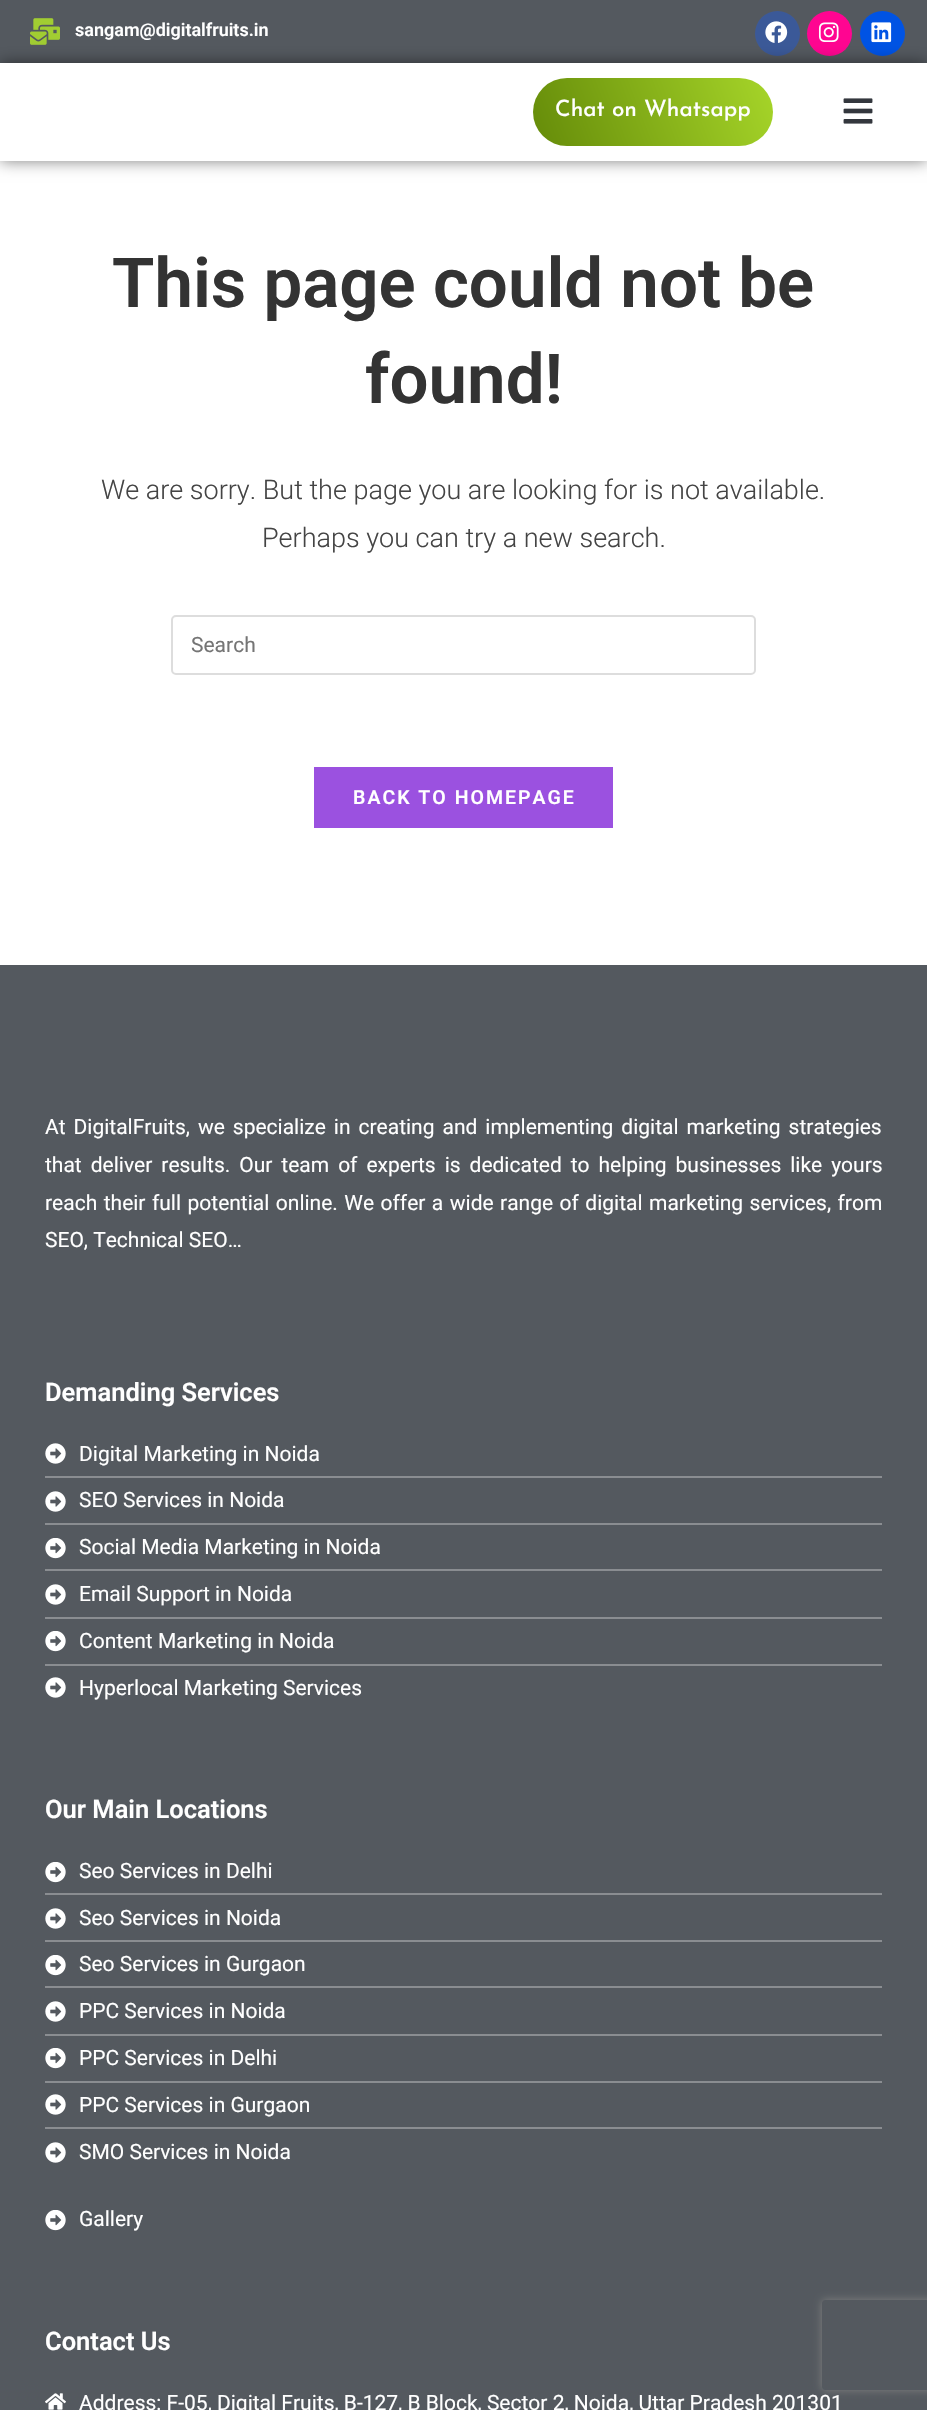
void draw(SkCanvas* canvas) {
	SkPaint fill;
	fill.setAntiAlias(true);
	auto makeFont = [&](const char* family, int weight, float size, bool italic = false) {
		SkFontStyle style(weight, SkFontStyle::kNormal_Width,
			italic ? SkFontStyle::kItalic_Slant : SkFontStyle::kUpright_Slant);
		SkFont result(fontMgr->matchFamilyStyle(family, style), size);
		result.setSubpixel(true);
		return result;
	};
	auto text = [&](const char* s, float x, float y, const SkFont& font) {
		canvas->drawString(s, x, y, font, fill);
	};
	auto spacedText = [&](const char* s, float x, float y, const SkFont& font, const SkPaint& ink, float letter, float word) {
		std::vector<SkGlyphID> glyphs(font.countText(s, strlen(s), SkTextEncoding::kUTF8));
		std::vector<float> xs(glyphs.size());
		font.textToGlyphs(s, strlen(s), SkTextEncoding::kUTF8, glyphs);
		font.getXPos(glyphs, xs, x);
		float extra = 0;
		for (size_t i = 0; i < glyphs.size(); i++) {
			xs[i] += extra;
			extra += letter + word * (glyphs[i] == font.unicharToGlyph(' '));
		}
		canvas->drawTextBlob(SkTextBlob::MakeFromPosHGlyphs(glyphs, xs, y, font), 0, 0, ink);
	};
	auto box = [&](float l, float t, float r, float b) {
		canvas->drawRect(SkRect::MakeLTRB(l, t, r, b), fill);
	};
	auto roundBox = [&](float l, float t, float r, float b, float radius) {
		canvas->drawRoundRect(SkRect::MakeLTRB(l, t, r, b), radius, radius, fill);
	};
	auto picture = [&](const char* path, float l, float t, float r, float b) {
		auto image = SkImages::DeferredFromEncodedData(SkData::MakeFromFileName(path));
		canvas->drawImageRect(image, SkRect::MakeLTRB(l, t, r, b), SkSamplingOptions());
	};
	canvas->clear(0xFFFFFFFF);
	fill.setColor(0xFF54595F);
	box(0, 0, 927, 63);
	picture("image0.png", 30, 18, 60, 45);
	fill.setColor(0xFF3B5998);
	canvas->drawCircle(777.5f, 33.5f, 22.5f, fill);
	picture("image1.png", 765, 21, 788, 43);
	fill.setColor(0xFFFF0591);
	canvas->drawCircle(829.5f, 33.5f, 22.5f, fill);
	picture("image2.png", 818, 22, 839, 42);
	fill.setColor(0xFF0053E4);
	canvas->drawCircle(882.5f, 33.5f, 22.5f, fill);
	picture("image3.png", 871, 22, 892, 43);
	fill.setColor(0x80000000);
	fill.setMaskFilter(SkMaskFilter::MakeBlur(kNormal_SkBlurStyle, 7.5f));
	canvas->drawRect(SkRect::MakeLTRB(0, 63, 927, 161), fill);
	fill.setMaskFilter(nullptr);
	fill.setColor(0xFFFFFFFF);
	box(0, 63, 927, 161);
	{
		const SkColor colors[] = {0xFFA6D529, 0xFF658B09};
		const float stops[] = {0, 1};
		const SkPoint ends[] = {{768, 67}, {537, 156}};
		fill.setShader(SkGradientShader::MakeLinear(ends, colors, stops, 2, SkTileMode::kClamp));
		fill.setAlpha(255);
	}
	roundBox(533, 78, 773, 146, 34);
	picture("image4.png", 843, 98, 873, 124);
	fill.setStyle(SkPaint::kStroke_Style);
	fill.setStrokeWidth(2);
	fill.setShader(nullptr);
	fill.setColor(0xFFDDDDDD);
	canvas->drawRoundRect(SkRect::MakeLTRB(172, 616, 755, 674), 4, 4, fill);
	fill.setStyle(SkPaint::kFill_Style);
	fill.setColor(0xFF9B51E0);
	box(314, 767, 613, 828);
	fill.setColor(0xFF54595F);
	box(0, 965, 927, 2410);
	picture("image5.png", 45, 1443, 66, 1464);
	fill.setColor(0xFF8A8D91);
	box(45, 1476, 882, 1478);
	picture("image5.png", 45, 1491, 66, 1512);
	box(45, 1523, 882, 1525);
	picture("image6.png", 45, 1538, 66, 1559);
	box(45, 1569, 882, 1571);
	picture("image5.png", 45, 1584, 66, 1605);
	box(45, 1617, 882, 1619);
	picture("image6.png", 45, 1631, 66, 1652);
	box(45, 1664, 882, 1666);
	picture("image5.png", 45, 1677, 66, 1698);
	picture("image6.png", 45, 1862, 66, 1883);
	box(45, 1893, 882, 1895);
	picture("image5.png", 45, 1908, 66, 1929);
	box(45, 1940, 882, 1942);
	picture("image6.png", 45, 1955, 66, 1976);
	box(45, 1986, 882, 1988);
	picture("image5.png", 45, 2001, 66, 2022);
	box(45, 2034, 882, 2036);
	picture("image6.png", 45, 2048, 66, 2069);
	box(45, 2081, 882, 2083);
	picture("image5.png", 45, 2094, 66, 2115);
	box(45, 2127, 882, 2129);
	picture("image5.png", 45, 2142, 66, 2163);
	picture("image6.png", 45, 2210, 66, 2231);
	picture("image7.png", 45, 2393, 66, 2410);
	canvas->save();
	canvas->clipPath(SkPathBuilder(SkPathFillType::kEvenOdd).moveTo(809, 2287).lineTo(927, 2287).lineTo(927, 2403).lineTo(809, 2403).close().moveTo(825, 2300).lineTo(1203, 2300).cubicTo(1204.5f, 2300, 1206, 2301.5f, 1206, 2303).lineTo(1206, 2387).cubicTo(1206, 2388.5f, 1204.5f, 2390, 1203, 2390).lineTo(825, 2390).cubicTo(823.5f, 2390, 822, 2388.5f, 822, 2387).lineTo(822, 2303).cubicTo(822, 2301.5f, 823.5f, 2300, 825, 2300).close().detach(), true);
	fill.setColor(0xFF808080);
	fill.setMaskFilter(SkMaskFilter::MakeBlur(kNormal_SkBlurStyle, 4));
	canvas->drawRoundRect(SkRect::MakeLTRB(822, 2300, 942, 2390), 3, 3, fill);
	fill.setMaskFilter(nullptr);
	canvas->restore();
	auto font1 = makeFont("Roboto", 600, 18);
	fill.setColor(0xFFFFFFFF);
	text("sangam@digitalfruits.in", 75, 36, font1);
	auto font2 = makeFont("Josefin Sans", 500, 22.5f);
	text("Chat on Whatsapp", 555, 116, font2);
	auto font3 = makeFont("Roboto", 600, 69);
	fill.setColor(0xFF333333);
	text("This page could not be", 112, 307, font3);
	text("found!", 365, 403, font3);
	auto font4 = makeFont("Roboto", 300, 27);
	fill.setColor(0xFF444444);
	text("We are sorry. But the page you are looking for is not available.", 101, 499, font4);
	text("Perhaps you can try a new search.", 262, 547, font4);
	auto font5 = makeFont("Roboto", 400, 21);
	fill.setColor(0xFF757575);
	text("Search", 191, 652, font5);
	auto font6 = makeFont("Roboto", 600, 19.5f);
	fill.setColor(0xFFFFFFFF);
	spacedText("BACK TO HOMEPAGE", 353, 804, font6, fill, 2, 0);
	spacedText("At DigitalFruits, we specialize in creating and implementing digital marketing strategies", 45, 1134, font5, fill, 0, 2.75f);
	spacedText("that deliver results. Our team of experts is dedicated to helping businesses like yours", 45, 1172, font5, fill, 0, 3.75f);
	spacedText("reach their full potential online. We offer a wide range of digital marketing services, from", 45, 1210, font5, fill, 0, 1.25f);
	text("SEO, Technical SEO…", 45, 1247, font5);
	auto font7 = makeFont("Roboto", 600, 25.5f);
	text("Demanding Services", 45, 1401, font7);
	text("Digital Marketing in Noida", 79, 1461, font5);
	text("SEO Services in Noida", 79, 1507, font5);
	text("Social Media Marketing in Noida", 79, 1554, font5);
	text("Email Support in Noida", 79, 1601, font5);
	text("Content Marketing in Noida", 79, 1648, font5);
	text("Hyperlocal Marketing Services", 79, 1695, font5);
	text("Our Main Locations", 45, 1818, font7);
	text("Seo Services in Delhi", 79, 1878, font5);
	text("Seo Services in Noida", 79, 1925, font5);
	text("Seo Services in Gurgaon", 79, 1971, font5);
	text("PPC Services in Noida", 79, 2018, font5);
	text("PPC Services in Delhi", 79, 2065, font5);
	text("PPC Services in Gurgaon", 79, 2112, font5);
	text("SMO Services in Noida", 79, 2159, font5);
	text("Gallery", 79, 2226, font5);
	text("Contact Us", 45, 2350, font7);
	text("Address: F-05, Digital Fruits, B-127, B Block, Sector 2, Noida, Uttar Pradesh 201301", 79, 2410, font5);
}
